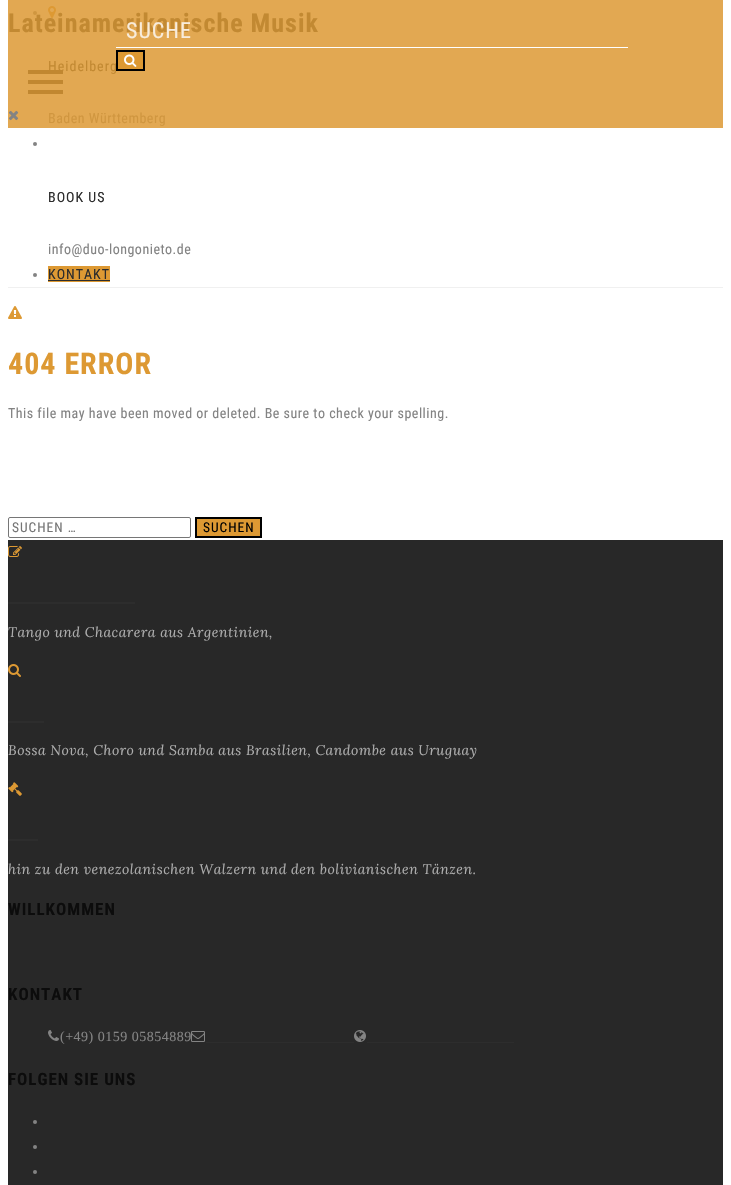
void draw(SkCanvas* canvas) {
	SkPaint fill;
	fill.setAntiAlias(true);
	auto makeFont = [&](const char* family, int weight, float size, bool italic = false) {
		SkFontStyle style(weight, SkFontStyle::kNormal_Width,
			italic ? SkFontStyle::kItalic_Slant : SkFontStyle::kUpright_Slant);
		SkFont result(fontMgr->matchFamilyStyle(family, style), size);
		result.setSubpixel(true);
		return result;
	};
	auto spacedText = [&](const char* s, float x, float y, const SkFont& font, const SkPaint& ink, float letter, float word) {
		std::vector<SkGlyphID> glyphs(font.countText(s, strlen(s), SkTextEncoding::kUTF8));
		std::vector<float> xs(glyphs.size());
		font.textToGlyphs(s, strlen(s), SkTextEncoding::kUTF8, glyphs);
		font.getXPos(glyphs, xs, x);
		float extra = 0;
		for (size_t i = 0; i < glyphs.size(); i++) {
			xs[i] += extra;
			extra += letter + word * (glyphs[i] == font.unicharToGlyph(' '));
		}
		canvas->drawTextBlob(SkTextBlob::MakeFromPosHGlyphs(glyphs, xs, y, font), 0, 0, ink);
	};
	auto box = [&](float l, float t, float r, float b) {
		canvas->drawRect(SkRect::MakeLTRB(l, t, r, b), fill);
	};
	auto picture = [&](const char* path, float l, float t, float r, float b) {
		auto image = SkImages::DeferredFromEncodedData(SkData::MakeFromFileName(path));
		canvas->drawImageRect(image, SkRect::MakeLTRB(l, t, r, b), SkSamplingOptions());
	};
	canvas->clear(0xFFFFFFFF);
	fill.setColor(0xFFE2A852);
	box(8, 0, 723, 128);
	canvas->save();
	canvas->clipRect(SkRect::MakeLTRB(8, 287, 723, 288));
	fill.setColor(0x0F000000);
	fill.setMaskFilter(SkMaskFilter::MakeBlur(kNormal_SkBlurStyle, 0.5f));
	canvas->drawRect(SkRect::MakeLTRB(8, -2, 723, 288), fill);
	fill.setMaskFilter(nullptr);
	canvas->restore();
	fill.setColor(0xFF838383);
	canvas->drawCircle(35, 144, 2, fill);
	canvas->drawCircle(35, 275, 2, fill);
	fill.setColor(0xFFDD9933);
	box(48, 266, 110, 282);
	fill.setColor(0xFF2D2D2D);
	box(48, 280, 110, 281);
	fill.setColor(0xFFC18730);
	box(28, 80, 63, 84);
	box(28, 90, 63, 94);
	fill.setColor(0xFFFFFFFF);
	box(116, 47, 628, 48);
	fill.setColor(0xFFDD9933);
	canvas->drawRect(SkRect::MakeLTRB(117, 51, 144, 70), fill);
	fill.setStyle(SkPaint::kStroke_Style);
	fill.setStrokeWidth(2);
	fill.setColor(0xFF000000);
	canvas->drawRect(SkRect::MakeLTRB(117, 51, 144, 70), fill);
	picture("image1.png", 124, 54, 137, 67);
	picture("image2.png", 8, 110, 19, 121);
	picture("image3.png", 8, 306, 22, 319);
	fill.setStrokeWidth(1);
	fill.setColor(0xFF767676);
	canvas->drawRoundRect(SkRect::MakeLTRB(8.5f, 517.5f, 190.5f, 537.5f), 1.5f, 1.5f, fill);
	fill.setStyle(SkPaint::kFill_Style);
	fill.setColor(0xFFDD9933);
	canvas->drawRect(SkRect::MakeLTRB(196, 518, 261, 537), fill);
	fill.setStyle(SkPaint::kStroke_Style);
	fill.setStrokeWidth(2);
	fill.setColor(0xFF000000);
	canvas->drawRect(SkRect::MakeLTRB(196, 518, 261, 537), fill);
	fill.setStyle(SkPaint::kFill_Style);
	fill.setColor(0xFF282828);
	box(8, 540, 723, 1185);
	picture("image4.png", 8, 546, 22, 557);
	fill.setColor(0xFF2D2D2D);
	box(8, 602, 135, 604);
	picture("image5.png", 8, 664, 21, 677);
	box(8, 721, 44, 723);
	picture("image6.png", 8, 782, 22, 796);
	box(8, 839, 38, 841);
	picture("image7.png", 48, 1030, 59, 1041);
	picture("image8.png", 191, 1031, 205, 1042);
	box(206, 1042, 354, 1043);
	picture("image9.png", 354, 1030, 366, 1042);
	box(367, 1042, 514, 1043);
	fill.setColor(0xFF838383);
	canvas->drawCircle(35, 1122, 2, fill);
	canvas->drawCircle(35, 1147, 2, fill);
	canvas->drawCircle(35, 1172, 2, fill);
	auto font1 = makeFont("Roboto Condensed", 700, 26);
	fill.setColor(0xFFC28932);
	spacedText("Lateinamerikanische Musik", 8, 32, font1, fill, 1, 0);
	fill.setColor(0xFFD0963F);
	canvas->drawCircle(35, 13, 2, fill);
	picture("image0.png", 48, 6, 56, 18);
	auto font2 = makeFont("Roboto Condensed", 400, 14);
	fill.setColor(0xFFC28932);
	spacedText("Heidelberg", 48, 71, font2, fill, 1, 0);
	fill.setColor(0xFFD0963F);
	spacedText("Baden Württemberg", 48, 123, font2, fill, 0.5f, 0);
	fill.setColor(0xFF2C2C2C);
	spacedText("BOOK US", 48, 202, font2, fill, 1, 0);
	fill.setColor(0xFF838383);
	spacedText("info@duo-longonieto.de", 48, 254, font2, fill, 0.5f, 0);
	fill.setColor(0xFF2C2C2C);
	spacedText("KONTAKT", 48, 279, font2, fill, 1, 0);
	fill.setColor(0xFFC18730);
	box(28, 70, 63, 74);
	auto font3 = makeFont("Roboto Condensed", 400, 22);
	fill.setColor(0xFFF8ECDB);
	spacedText("SUCHE", 126, 38, font3, fill, 1, 0);
	auto font4 = makeFont("Roboto Condensed", 700, 30);
	fill.setColor(0xFFDD9933);
	spacedText("404 ERROR", 8, 374, font4, fill, 1, 0);
	fill.setColor(0xFF838383);
	spacedText("This file may have been moved or deleted. Be sure to check your spelling.", 8, 418, font2, fill, 0.5f, 0);
	auto font5 = makeFont("Roboto Condensed", 400, 13.5f);
	fill.setColor(0xFF757575);
	spacedText("SUCHEN …", 12, 532, font5, fill, 1, 0);
	fill.setColor(0xFF000000);
	spacedText("SUCHEN", 203, 532, font5, fill, 1, 0);
	auto font6 = makeFont("Lora", 400, 14, true);
	fill.setColor(0xFFADADAD);
	spacedText("Tango und Chacarera aus Argentinien,", 8, 637, font6, fill, 0.5f, 0);
	spacedText("Bossa Nova, Choro und Samba aus Brasilien, Candombe aus Uruguay", 8, 755, font6, fill, 0.5f, 0);
	spacedText("hin zu den venezolanischen Walzern und den bolivianischen Tänzen.", 8, 874, font6, fill, 0.5f, 0);
	auto font7 = makeFont("Roboto Condensed", 700, 17);
	fill.setColor(0xFF0C0C0C);
	spacedText("WILLKOMMEN", 8, 915, font7, fill, 1, 0);
	spacedText("KONTAKT", 8, 1000, font7, fill, 1, 0);
	auto font8 = makeFont("Liberation Serif", 400, 14);
	fill.setColor(0xFF838383);
	spacedText("(+49) 0159 05854889", 60, 1041, font8, fill, 0.5f, 0);
	fill.setColor(0xFF0C0C0C);
	spacedText("FOLGEN SIE UNS", 8, 1085, font7, fill, 1, 0);
}
